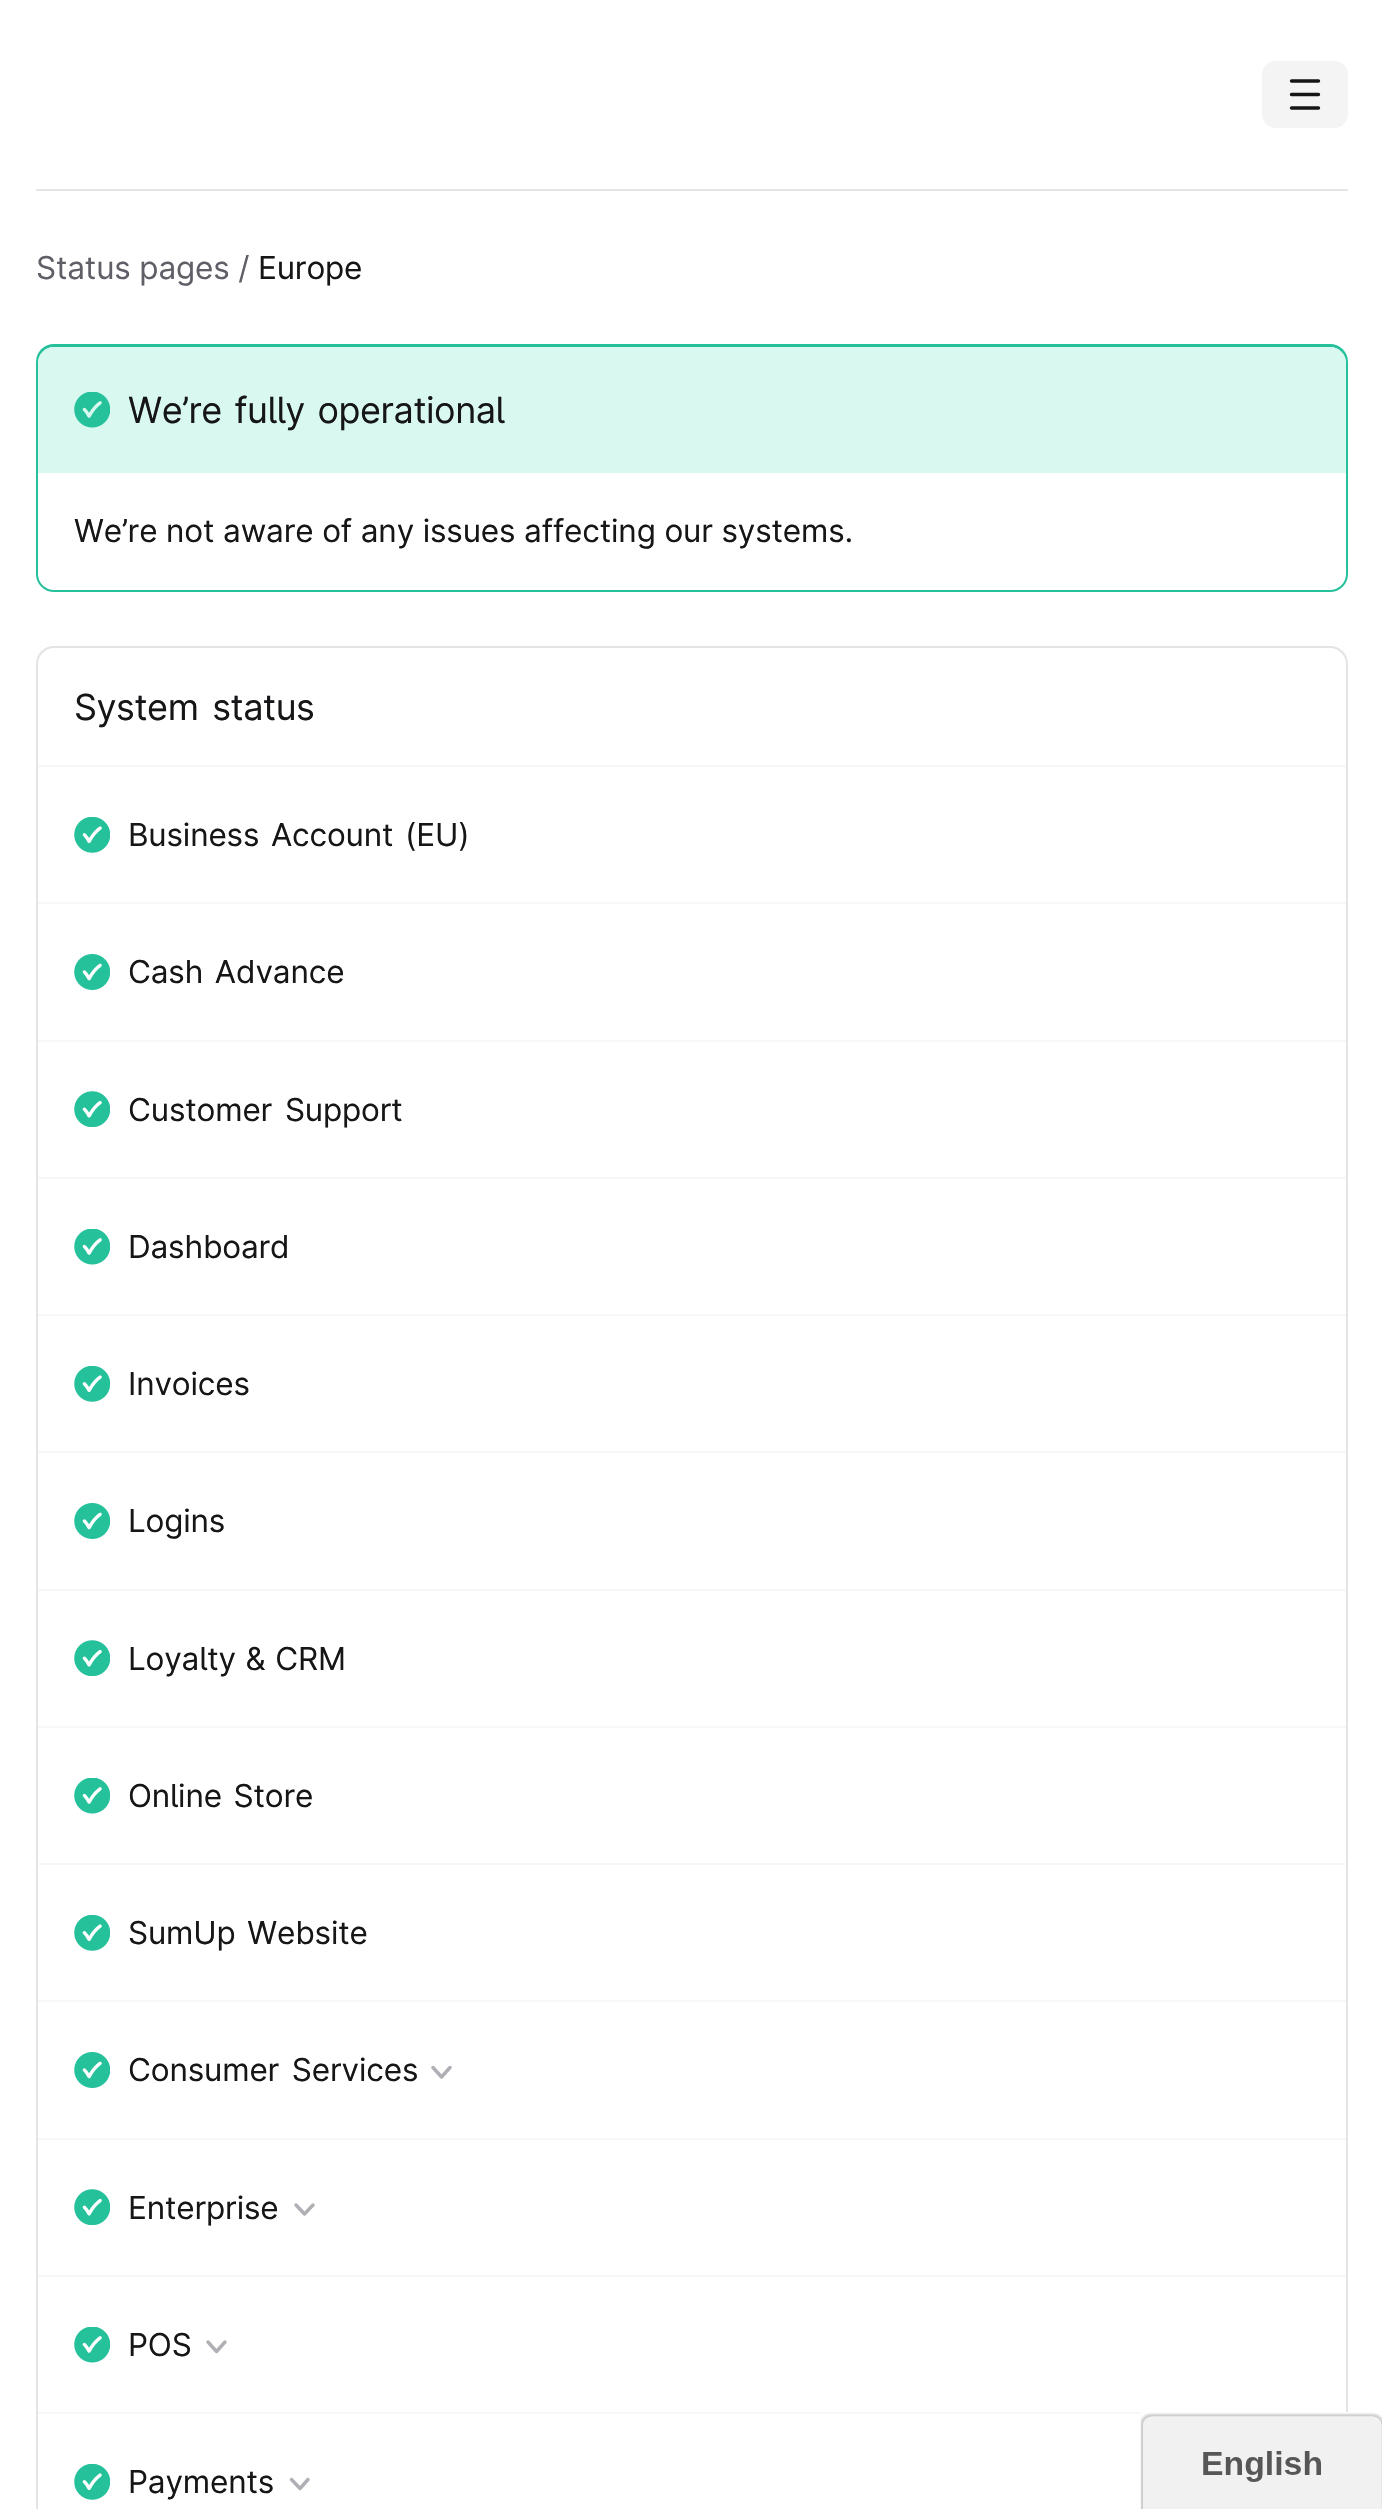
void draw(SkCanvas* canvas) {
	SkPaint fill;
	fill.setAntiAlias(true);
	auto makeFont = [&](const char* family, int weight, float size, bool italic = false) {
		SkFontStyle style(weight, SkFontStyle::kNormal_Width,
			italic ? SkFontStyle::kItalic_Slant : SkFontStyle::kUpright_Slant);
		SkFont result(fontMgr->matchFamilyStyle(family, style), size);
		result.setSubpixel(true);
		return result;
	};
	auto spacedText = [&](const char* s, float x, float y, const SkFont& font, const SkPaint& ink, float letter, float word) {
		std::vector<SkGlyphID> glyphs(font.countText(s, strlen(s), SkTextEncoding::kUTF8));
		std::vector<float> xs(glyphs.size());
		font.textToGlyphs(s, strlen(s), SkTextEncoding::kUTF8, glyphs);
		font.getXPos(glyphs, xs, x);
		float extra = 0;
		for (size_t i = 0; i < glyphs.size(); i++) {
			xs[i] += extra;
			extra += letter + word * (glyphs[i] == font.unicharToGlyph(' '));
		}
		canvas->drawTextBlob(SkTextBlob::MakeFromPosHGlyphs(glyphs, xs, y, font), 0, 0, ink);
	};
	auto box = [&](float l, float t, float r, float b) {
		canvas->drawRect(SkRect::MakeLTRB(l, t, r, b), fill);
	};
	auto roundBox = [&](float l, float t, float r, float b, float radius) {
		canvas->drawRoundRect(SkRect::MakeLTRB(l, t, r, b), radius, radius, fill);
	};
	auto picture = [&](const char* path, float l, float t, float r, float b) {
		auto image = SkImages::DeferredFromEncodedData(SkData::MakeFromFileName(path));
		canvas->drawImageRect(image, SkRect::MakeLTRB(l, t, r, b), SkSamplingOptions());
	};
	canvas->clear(0xFFFFFFFF);
	fill.setColor(0xFFF4F4F5);
	roundBox(1262, 61, 1348, 128, 14);
	fill.setStyle(SkPaint::kStroke_Style);
	fill.setStrokeWidth(3.4f);
	fill.setStrokeCap(SkPaint::kRound_Cap);
	fill.setStrokeJoin(SkPaint::kRound_Join);
	fill.setColor(0xFF161618);
	canvas->drawPath(SkPathBuilder().moveTo(1291.5f, 81).lineTo(1318.5f, 81).moveTo(1291.5f, 94.5f).lineTo(1318.5f, 94.5f).moveTo(1291.5f, 108).lineTo(1318.5f, 108).detach(), fill);
	fill.setStyle(SkPaint::kFill_Style);
	fill.setColor(0xFFE4E4E7);
	box(36, 189, 1348, 191);
	fill.setColor(0xFF24C19A);
	roundBox(36, 344, 1348, 592, 18);
	fill.setColor(0xFFFFFFFF);
	roundBox(38, 347, 1346, 590, 16);
	fill.setColor(0xFFD8F8F0);
	canvas->drawPath(SkPathBuilder().moveTo(54, 347).lineTo(1330, 347).cubicTo(1339, 347, 1346, 354, 1346, 363).lineTo(1346, 473).lineTo(38, 473).lineTo(38, 363).cubicTo(38, 354, 45, 347, 54, 347).close().detach(), fill);
	picture("image0.png", 74, 392, 110, 428);
	fill.setColor(0xFFE4E4E7);
	roundBox(36, 646, 1348, 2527, 18);
	fill.setColor(0xFFFFFFFF);
	roundBox(38, 648, 1346, 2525, 16);
	fill.setColor(0xFFF7F7F8);
	box(38, 765, 1346, 767);
	picture("image1.png", 74, 817, 110, 853);
	box(38, 902, 1346, 904);
	picture("image2.png", 74, 954, 110, 990);
	box(38, 1040, 1346, 1042);
	picture("image3.png", 74, 1091, 110, 1127);
	box(38, 1177, 1346, 1179);
	picture("image4.png", 74, 1229, 110, 1265);
	box(38, 1314, 1346, 1316);
	picture("image1.png", 74, 1366, 110, 1402);
	box(38, 1451, 1346, 1453);
	picture("image2.png", 74, 1503, 110, 1539);
	box(38, 1589, 1346, 1591);
	picture("image3.png", 74, 1640, 110, 1676);
	box(38, 1726, 1346, 1728);
	picture("image4.png", 74, 1778, 110, 1814);
	box(38, 1863, 1346, 1865);
	picture("image1.png", 74, 1915, 110, 1951);
	box(38, 2000, 1346, 2002);
	picture("image2.png", 74, 2052, 110, 2088);
	canvas->save();
	canvas->clipRect(SkRect::MakeLTRB(430, 2066, 452, 2079));
	fill.setStyle(SkPaint::kStroke_Style);
	fill.setColor(0xFFAFAFB6);
	canvas->drawPath(SkPathBuilder().moveTo(450, 2067.5f).lineTo(441.5f, 2077).lineTo(433, 2067.5f).detach(), fill);
	canvas->restore();
	fill.setStyle(SkPaint::kFill_Style);
	fill.setColor(0xFFF7F7F8);
	box(38, 2138, 1346, 2140);
	picture("image3.png", 74, 2189, 110, 2225);
	fill.setStyle(SkPaint::kStroke_Style);
	fill.setColor(0xFFAFAFB6);
	canvas->drawPath(SkPathBuilder().moveTo(313, 2205).lineTo(304.5f, 2214).lineTo(296, 2205).detach(), fill);
	fill.setStyle(SkPaint::kFill_Style);
	fill.setColor(0xFFF7F7F8);
	box(38, 2275, 1346, 2277);
	picture("image4.png", 74, 2327, 110, 2363);
	fill.setStyle(SkPaint::kStroke_Style);
	fill.setColor(0xFFAFAFB6);
	canvas->drawPath(SkPathBuilder().moveTo(225, 2342).lineTo(216.5f, 2351.5f).lineTo(208, 2342).detach(), fill);
	fill.setStyle(SkPaint::kFill_Style);
	fill.setColor(0xFFF7F7F8);
	box(38, 2412, 1141, 2414);
	picture("image1.png", 74, 2464, 110, 2500);
	fill.setStyle(SkPaint::kStroke_Style);
	fill.setColor(0xFFAFAFB6);
	canvas->drawPath(SkPathBuilder().moveTo(308, 2479.5f).lineTo(300, 2488.5f).lineTo(291.5f, 2479.5f).detach(), fill);
	picture("image5.png", 1140, 2412, 1382, 2509);
	auto font1 = makeFont("Inter", 400, 31.5f);
	fill.setStyle(SkPaint::kFill_Style);
	fill.setColor(0xFF5F5F68);
	spacedText("Status pages /", 36, 279, font1, fill, -0.15f, 0);
	fill.setColor(0xFF161618);
	spacedText("Europe", 258, 279, font1, fill, -0.15f, 0);
	auto font2 = makeFont("Inter", 400, 36);
	spacedText("We’re fully operational", 128, 423, font2, fill, -0.45f, 3);
	spacedText("We’re not aware of any issues affecting our systems.", 74, 542, font1, fill, -0.15f, 0);
	spacedText("System status", 74, 720, font2, fill, -0.45f, 4);
	spacedText("Business Account (EU)", 128, 846, font1, fill, -0.15f, 3);
	spacedText("Cash Advance", 128, 983, font1, fill, -0.15f, 3);
	spacedText("Customer Support", 128, 1121, font1, fill, -0.15f, 4);
	spacedText("Dashboard", 128, 1258, font1, fill, -0.15f, 0);
	spacedText("Invoices", 128, 1395, font1, fill, -0.15f, 0);
	spacedText("Logins", 128, 1532, font1, fill, -0.15f, 0);
	spacedText("Loyalty & CRM", 128, 1670, font1, fill, -0.15f, 1);
	spacedText("Online Store", 128, 1807, font1, fill, -0.15f, 3);
	spacedText("SumUp Website", 128, 1944, font1, fill, -0.15f, 3);
	spacedText("Consumer Services", 128, 2081, font1, fill, -0.15f, 4);
	spacedText("Enterprise", 128, 2219, font1, fill, -0.15f, 0);
	spacedText("POS", 128, 2356, font1, fill, -0.15f, 0);
	spacedText("Payments", 128, 2493, font1, fill, -0.15f, 0);
}
